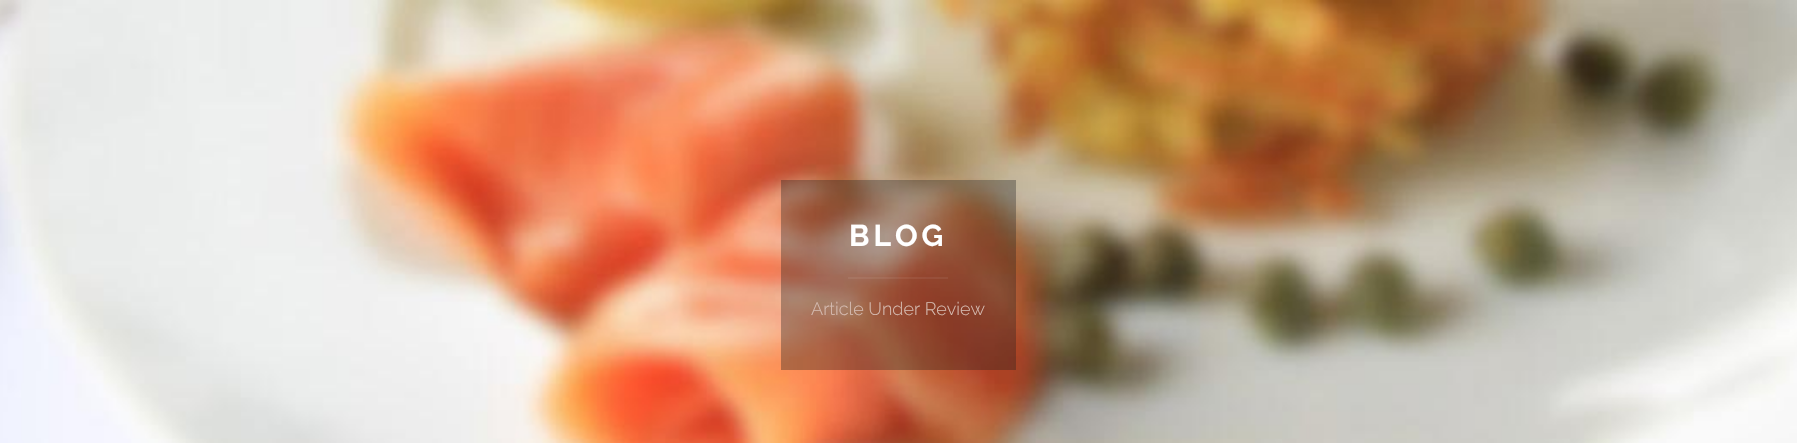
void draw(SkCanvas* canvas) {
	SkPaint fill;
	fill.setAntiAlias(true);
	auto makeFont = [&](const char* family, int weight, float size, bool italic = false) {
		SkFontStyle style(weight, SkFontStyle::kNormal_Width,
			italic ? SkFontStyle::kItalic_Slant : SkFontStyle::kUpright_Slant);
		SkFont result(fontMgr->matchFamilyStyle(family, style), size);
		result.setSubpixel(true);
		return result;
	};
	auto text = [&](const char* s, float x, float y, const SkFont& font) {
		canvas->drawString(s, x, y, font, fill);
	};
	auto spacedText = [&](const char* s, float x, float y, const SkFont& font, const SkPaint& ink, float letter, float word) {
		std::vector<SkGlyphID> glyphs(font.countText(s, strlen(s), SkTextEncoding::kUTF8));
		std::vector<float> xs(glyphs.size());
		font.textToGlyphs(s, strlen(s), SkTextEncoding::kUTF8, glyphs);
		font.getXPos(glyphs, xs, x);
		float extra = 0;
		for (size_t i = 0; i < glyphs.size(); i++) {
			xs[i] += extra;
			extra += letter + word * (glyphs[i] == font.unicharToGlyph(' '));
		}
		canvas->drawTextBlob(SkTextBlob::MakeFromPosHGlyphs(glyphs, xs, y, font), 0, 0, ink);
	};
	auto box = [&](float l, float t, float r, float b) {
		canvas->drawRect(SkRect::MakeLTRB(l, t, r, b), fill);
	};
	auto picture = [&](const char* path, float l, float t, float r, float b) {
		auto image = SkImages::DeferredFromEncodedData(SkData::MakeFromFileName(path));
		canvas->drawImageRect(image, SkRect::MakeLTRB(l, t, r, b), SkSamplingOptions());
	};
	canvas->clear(0xFFFFFFFF);
	picture("image0.png", 0, 0, 1797, 443);
	fill.setColor(0x571D1D1D);
	box(781, 180, 1016, 370);
	fill.setColor(0x0FFFFFFF);
	box(848, 277, 948, 279);
	auto font1 = makeFont("Raleway", 700, 30);
	fill.setColor(0xFFFFFFFF);
	spacedText("BLOG", 849, 246, font1, fill, 4, 0);
	auto font2 = makeFont("Raleway", 300, 18);
	fill.setColor(0xFFD5BBB1);
	text("Article Under Review", 811, 315, font2);
}
